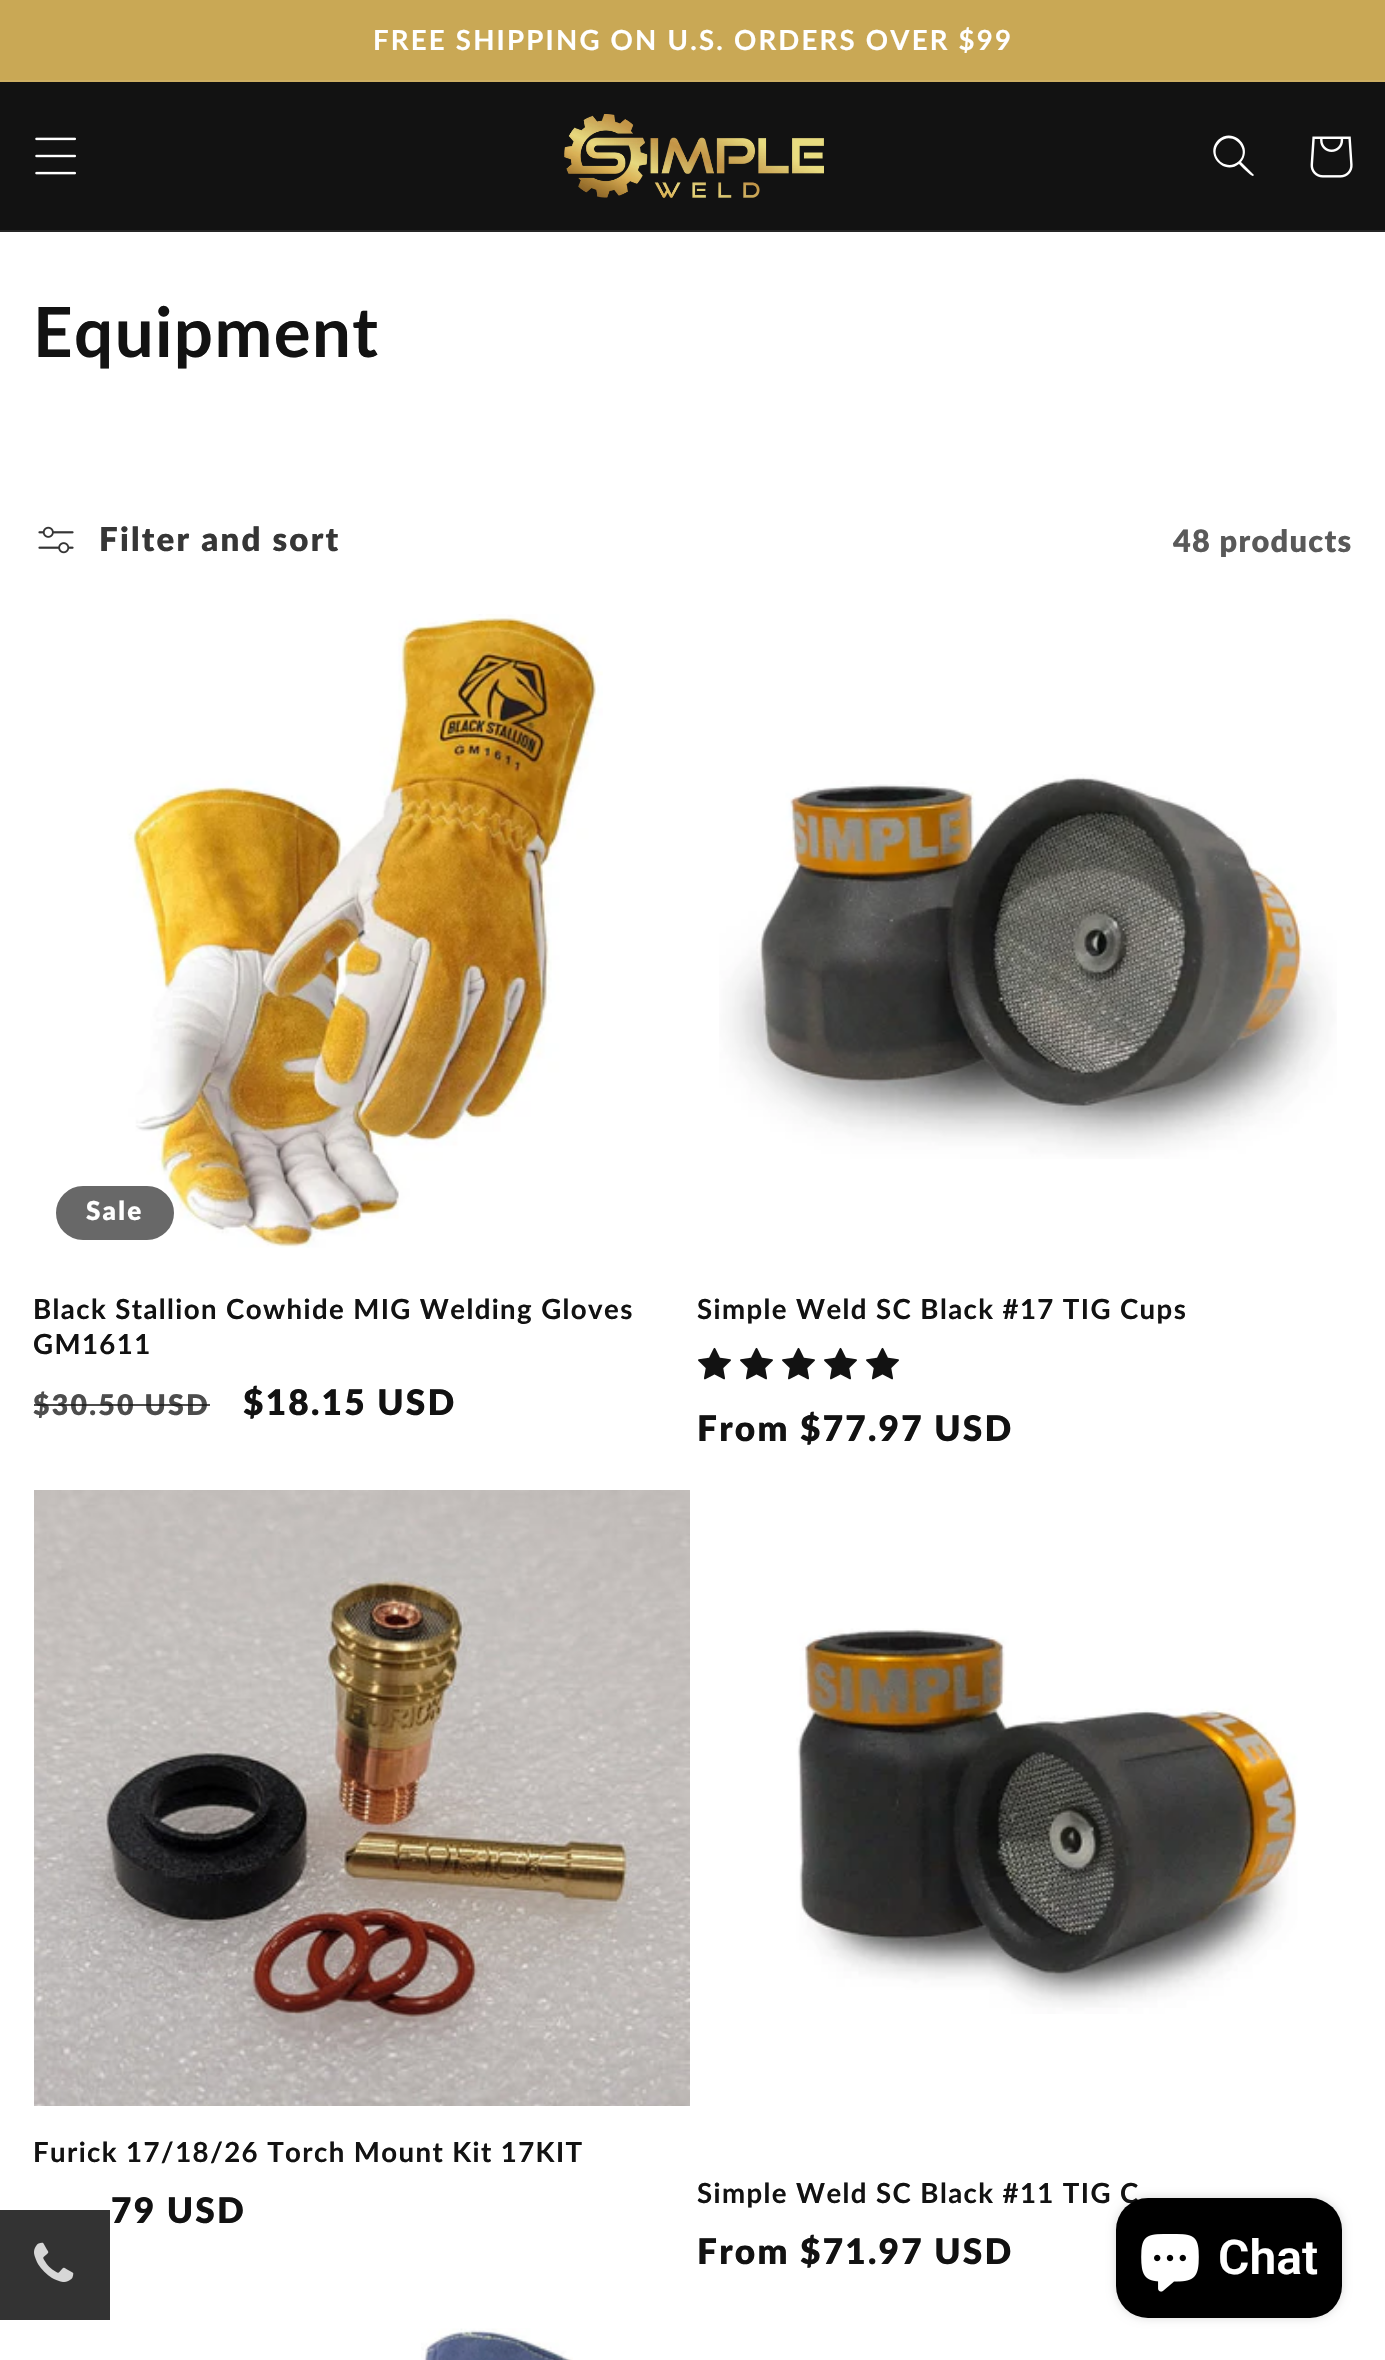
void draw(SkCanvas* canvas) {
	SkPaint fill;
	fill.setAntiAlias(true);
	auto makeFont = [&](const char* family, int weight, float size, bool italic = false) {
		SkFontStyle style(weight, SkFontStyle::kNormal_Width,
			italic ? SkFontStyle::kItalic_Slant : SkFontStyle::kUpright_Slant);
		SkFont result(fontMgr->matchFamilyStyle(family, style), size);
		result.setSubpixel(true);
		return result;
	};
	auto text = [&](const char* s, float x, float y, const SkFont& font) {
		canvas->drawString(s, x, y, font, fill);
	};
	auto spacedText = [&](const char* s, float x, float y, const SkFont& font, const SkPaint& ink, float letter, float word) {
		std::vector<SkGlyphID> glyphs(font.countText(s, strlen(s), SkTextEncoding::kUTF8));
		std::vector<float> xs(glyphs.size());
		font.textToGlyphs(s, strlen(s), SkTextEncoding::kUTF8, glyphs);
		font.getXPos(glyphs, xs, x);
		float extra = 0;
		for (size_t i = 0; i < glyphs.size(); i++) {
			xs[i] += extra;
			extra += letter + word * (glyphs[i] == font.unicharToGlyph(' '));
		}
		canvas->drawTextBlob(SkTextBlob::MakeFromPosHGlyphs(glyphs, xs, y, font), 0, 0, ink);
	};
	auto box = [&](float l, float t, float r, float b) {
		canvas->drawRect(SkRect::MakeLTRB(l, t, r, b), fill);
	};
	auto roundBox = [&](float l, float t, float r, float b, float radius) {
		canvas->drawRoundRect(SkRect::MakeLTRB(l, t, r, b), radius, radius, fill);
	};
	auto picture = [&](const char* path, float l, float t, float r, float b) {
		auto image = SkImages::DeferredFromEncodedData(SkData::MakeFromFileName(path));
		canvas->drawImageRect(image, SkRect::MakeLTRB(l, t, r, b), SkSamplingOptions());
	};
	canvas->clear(0xFFFFFFFF);
	fill.setColor(0xFFC9A855);
	box(0, 0, 1385, 80);
	fill.setColor(0xFFCDAF63);
	box(0, 80, 1385, 82);
	fill.setColor(0xFF121212);
	box(0, 82, 1385, 230);
	fill.setColor(0xFF252525);
	box(0, 230, 1385, 232);
	picture("image0.png", 35, 137, 76, 175);
	picture("image1.png", 564, 114, 824, 198);
	fill.setColor(0xFFFFFFFF);
	canvas->drawPath(SkPathBuilder(SkPathFillType::kEvenOdd).moveTo(1239, 161).cubicTo(1226, 173, 1207, 155, 1220, 142).cubicTo(1232, 130, 1251, 149, 1239, 161).close().moveTo(1239, 164).cubicTo(1224, 176, 1204, 154, 1218, 140).cubicTo(1233, 126, 1254, 147, 1241, 162).lineTo(1254, 175).lineTo(1253, 176).cubicTo(1252, 177, 1241, 166, 1239, 164).close().detach(), fill);
	picture("image2.png", 1310, 136, 1353, 178);
	picture("image3.png", 38, 526, 74, 554);
	picture("image4.png", 127, 614, 603, 1248);
	fill.setColor(0xFF686868);
	canvas->drawRoundRect(SkRect::MakeLTRB(57, 1187, 173, 1239), 26, 26, fill);
	fill.setStyle(SkPaint::kStroke_Style);
	fill.setStrokeWidth(2);
	canvas->drawRoundRect(SkRect::MakeLTRB(57, 1187, 173, 1239), 26, 26, fill);
	picture("image5.png", 719, 774, 1337, 1159);
	picture("image6.png", 698, 1347, 731, 1380);
	picture("image6.png", 740, 1347, 773, 1380);
	picture("image6.png", 782, 1347, 815, 1380);
	picture("image6.png", 824, 1347, 857, 1380);
	picture("image6.png", 866, 1347, 899, 1380);
	picture("image7.png", 34, 1490, 690, 2106);
	picture("image8.png", 796, 1628, 1298, 2014);
	picture("image9.png", 421, 2328, 573, 2360);
	fill.setStyle(SkPaint::kFill_Style);
	fill.setColor(0xCC000000);
	box(0, 2210, 110, 2320);
	picture("image10.png", 34, 2242, 74, 2282);
	fill.setColor(0x26000000);
	fill.setMaskFilter(SkMaskFilter::MakeBlur(kNormal_SkBlurStyle, 5));
	canvas->drawRoundRect(SkRect::MakeLTRB(1116, 2198, 1342, 2318), 32, 32, fill);
	fill.setMaskFilter(nullptr);
	auto font1 = makeFont("Lato", 700, 27.6f);
	fill.setColor(0xFFFFFFFF);
	spacedText("FREE SHIPPING ON U.S. ORDERS OVER $99", 373, 50, font1, fill, 2.2f, 0);
	auto font2 = makeFont("Lato", 700, 69);
	fill.setColor(0xFF121212);
	spacedText("Equipment", 33, 357, font2, fill, 1.4f, 0);
	auto font3 = makeFont("Lato", 800, 33);
	fill.setColor(0xFF363636);
	spacedText("Filter and sort", 99, 551, font3, fill, 2.2f, 0);
	auto font4 = makeFont("Lato", 800, 30.75f);
	fill.setColor(0xFF595959);
	spacedText("48 products", 1173, 552, font4, fill, 1.25f, 0);
	auto font5 = makeFont("Lato", 800, 26);
	fill.setColor(0xFFFFFFFF);
	spacedText("Sale", 86, 1220, font5, fill, 2.2f, 0);
	fill.setColor(0xFF121212);
	spacedText("Black Stallion Cowhide MIG Welding Gloves", 33, 1319, font1, fill, 1.4f, 0);
	spacedText("GM1611", 33, 1354, font1, fill, 1.4f, 0);
	auto font6 = makeFont("Lato", 800, 28.5f);
	fill.setColor(0xFF4D4D4D);
	spacedText("$30.50 USD", 33, 1415, font6, fill, 2.2f, 0);
	fill.setColor(0xBF121212);
	box(34, 1404, 210, 1406);
	auto font7 = makeFont("Lato", 800, 35.25f);
	fill.setColor(0xFF121212);
	spacedText("$18.15 USD", 243, 1415, font7, fill, 2.2f, 0);
	spacedText("Simple Weld SC Black #17 TIG Cups", 697, 1319, font1, fill, 1.4f, 0);
	spacedText("From $77.97 USD", 697, 1441, font7, fill, 2.2f, 0);
	spacedText("Furick 17/18/26 Torch Mount Kit 17KIT", 33, 2162, font1, fill, 1.4f, 0);
	spacedText("79 USD", 111, 2223, font7, fill, 2.2f, 0);
	spacedText("Simple Weld SC Black #11 TIG C", 697, 2203, font1, fill, 1.4f, 0);
	spacedText("From $71.97 USD", 697, 2264, font7, fill, 2.2f, 0);
	fill.setColor(0xFF000000);
	roundBox(1116, 2198, 1342, 2318, 32);
	picture("image11.png", 1141, 2234, 1199, 2292);
	auto font8 = makeFont("Roboto", 600, 48);
	fill.setColor(0xFFFFFFFF);
	text("Chat", 1218, 2274, font8);
}
